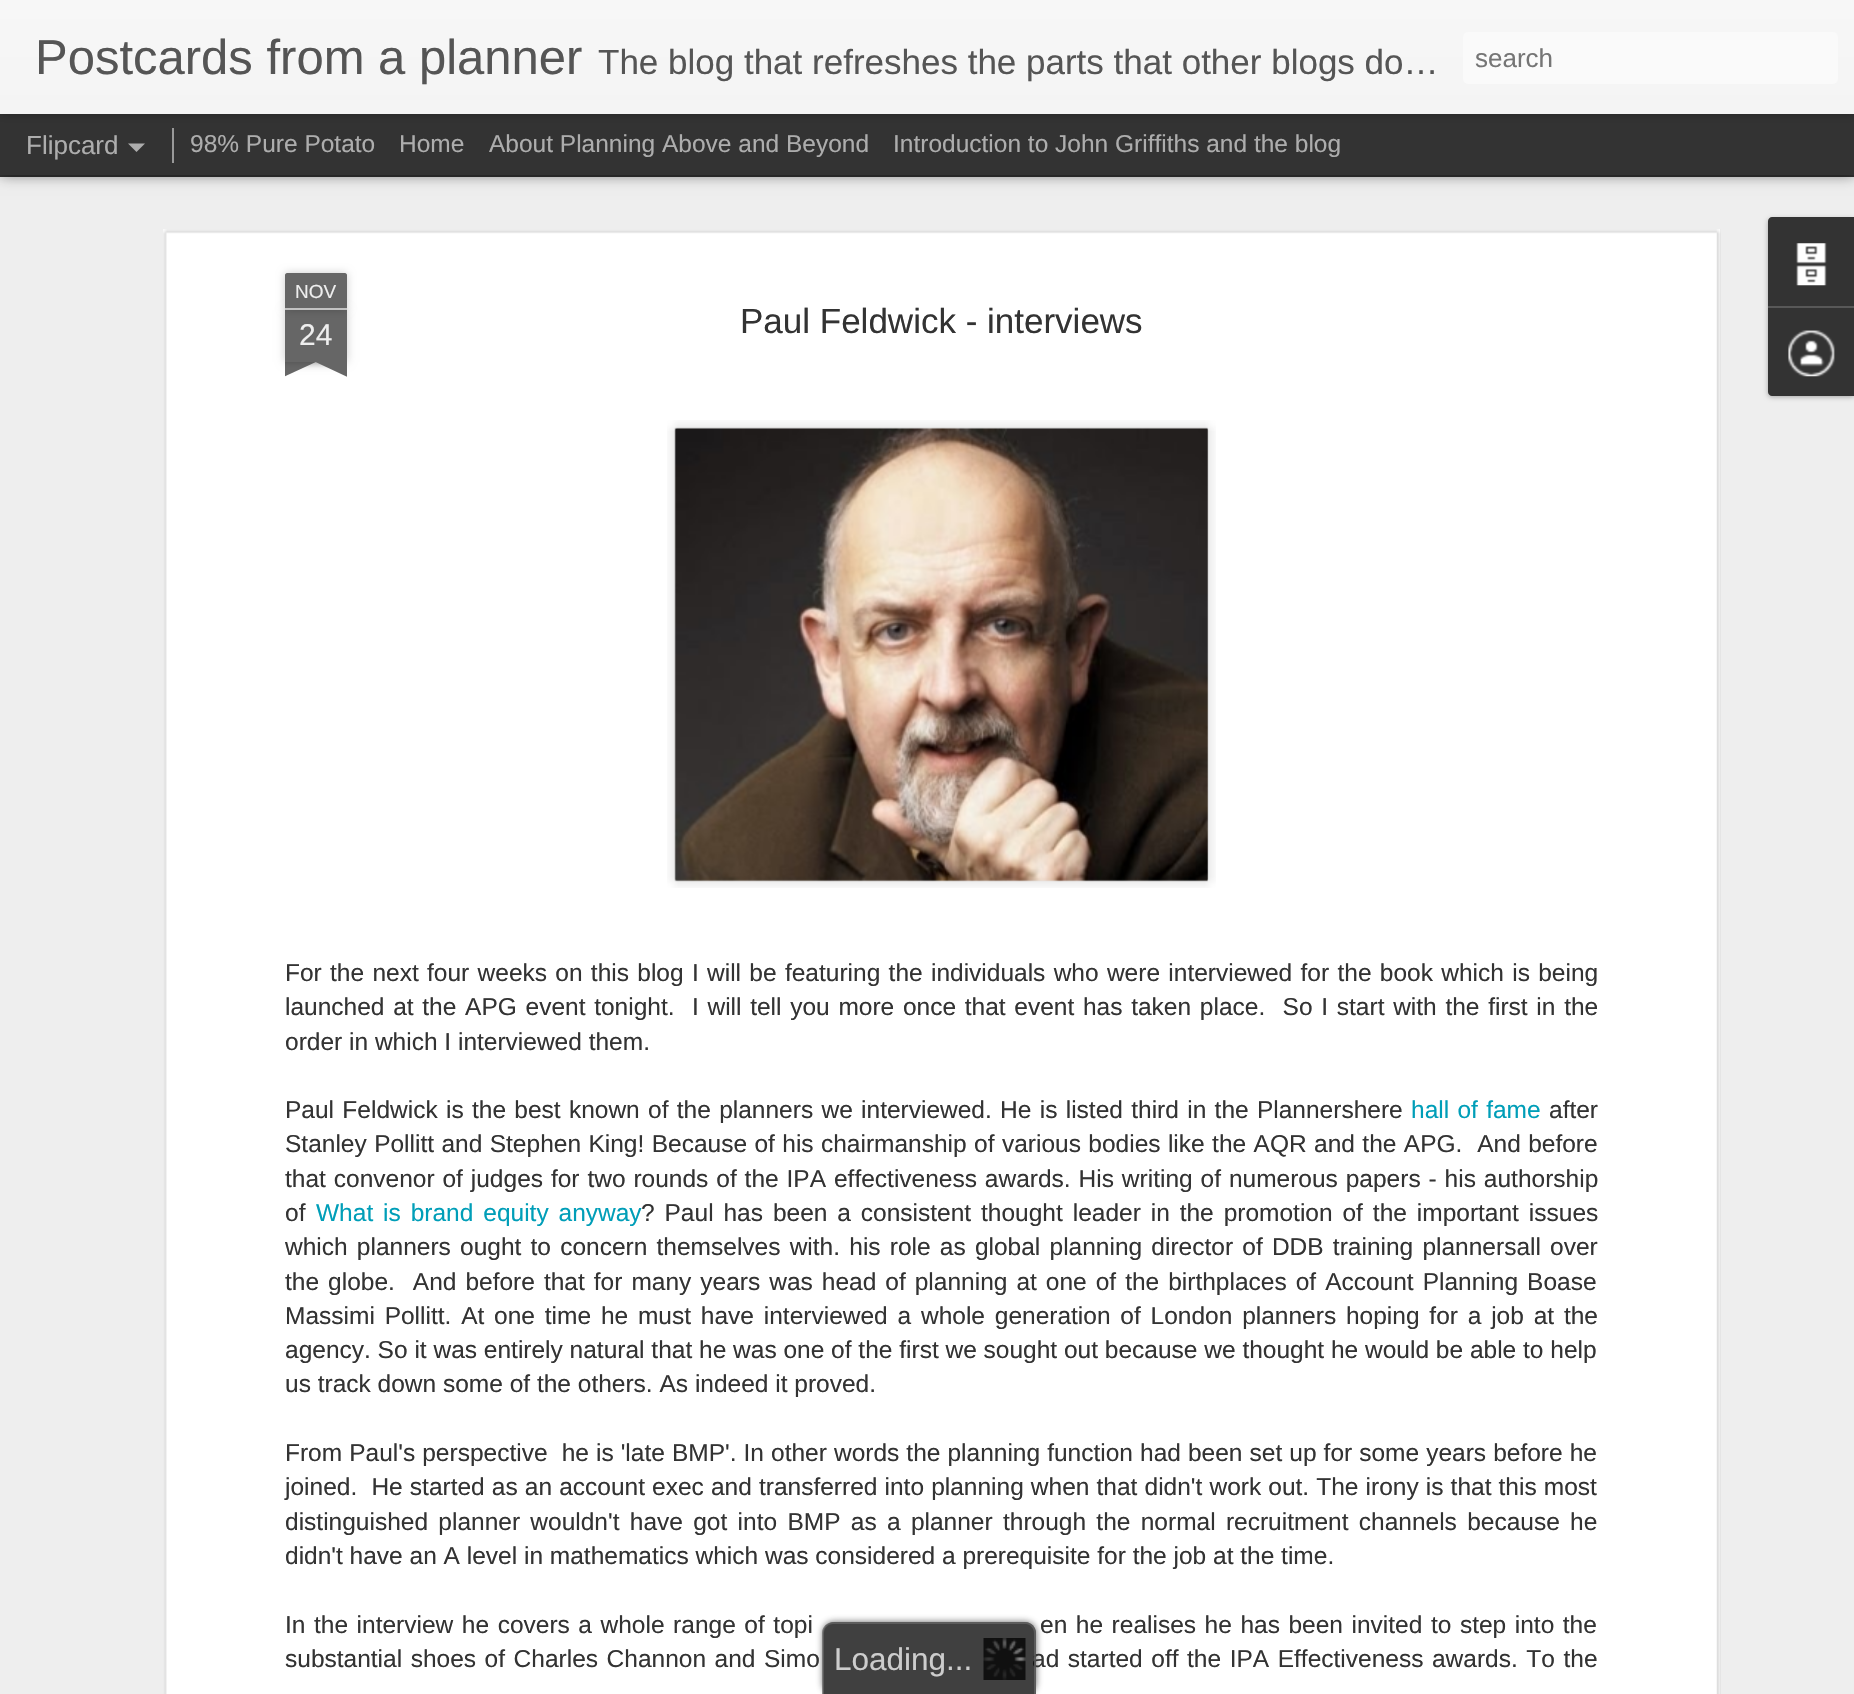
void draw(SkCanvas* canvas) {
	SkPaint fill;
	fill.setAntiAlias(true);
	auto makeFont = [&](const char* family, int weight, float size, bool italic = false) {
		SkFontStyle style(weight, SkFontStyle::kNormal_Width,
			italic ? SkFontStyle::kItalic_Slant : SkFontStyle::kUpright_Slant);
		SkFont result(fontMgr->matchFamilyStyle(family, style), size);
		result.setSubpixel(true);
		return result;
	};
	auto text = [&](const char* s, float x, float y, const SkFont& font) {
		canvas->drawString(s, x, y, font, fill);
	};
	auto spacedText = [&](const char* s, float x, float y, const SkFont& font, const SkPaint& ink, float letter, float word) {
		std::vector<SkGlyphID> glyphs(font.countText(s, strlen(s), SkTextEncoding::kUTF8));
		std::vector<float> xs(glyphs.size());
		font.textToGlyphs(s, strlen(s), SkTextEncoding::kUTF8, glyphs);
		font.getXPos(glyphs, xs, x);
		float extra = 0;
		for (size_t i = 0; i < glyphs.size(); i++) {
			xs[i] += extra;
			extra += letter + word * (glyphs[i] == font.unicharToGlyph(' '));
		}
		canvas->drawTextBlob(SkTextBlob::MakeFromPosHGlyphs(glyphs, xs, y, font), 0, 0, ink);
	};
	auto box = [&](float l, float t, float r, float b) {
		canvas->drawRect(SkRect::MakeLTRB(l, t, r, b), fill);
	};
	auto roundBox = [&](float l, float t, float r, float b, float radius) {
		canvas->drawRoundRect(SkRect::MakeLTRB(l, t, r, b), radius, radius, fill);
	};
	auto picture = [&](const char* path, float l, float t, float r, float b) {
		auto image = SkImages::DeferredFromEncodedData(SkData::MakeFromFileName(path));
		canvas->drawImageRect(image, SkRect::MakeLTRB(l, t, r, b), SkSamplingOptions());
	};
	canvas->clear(0xFF333333);
	fill.setColor(0xFFEEEEEE);
	box(0, 177, 1854, 1694);
	fill.setColor(0x80000000);
	fill.setMaskFilter(SkMaskFilter::MakeBlur(kNormal_SkBlurStyle, 7));
	canvas->drawRect(SkRect::MakeLTRB(0, 114, 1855, 175), fill);
	fill.setMaskFilter(nullptr);
	fill.setColor(0xFF333333);
	box(0, 114, 1854, 175);
	fill.setColor(0xFF999999);
	box(172, 128, 174, 163);
	fill.setColor(0x4D000000);
	fill.setMaskFilter(SkMaskFilter::MakeBlur(kNormal_SkBlurStyle, 4.5f));
	canvas->drawRect(SkRect::MakeLTRB(0, 0, 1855, 114), fill);
	fill.setMaskFilter(nullptr);
	{
		const SkColor colors[] = {0xFFF7F7F7, 0xFFF4F4F4};
		const float stops[] = {0, 1};
		const SkPoint ends[] = {{0, 0}, {0, 114}};
		fill.setShader(SkGradientShader::MakeLinear(ends, colors, stops, 2, SkTileMode::kClamp));
		fill.setAlpha(255);
	}
	box(0, 0, 1854, 114);
	fill.setShader(nullptr);
	fill.setColor(0xFFFAFAFA);
	roundBox(1463, 32, 1838, 84, 5);
	fill.setColor(0xFFADADAD);
	canvas->drawPath(SkPathBuilder().moveTo(128, 143.5f).lineTo(145, 143.5f).lineTo(136.5f, 152).close().detach(), fill);
	fill.setColor(0xFFFFFFFF);
	box(163, 229, 1720, 1694);
	picture("image0.png", 163, 229, 1721, 1694);
	fill.setColor(0x33000000);
	fill.setMaskFilter(SkMaskFilter::MakeBlur(kNormal_SkBlurStyle, 4.5f));
	canvas->drawRect(SkRect::MakeLTRB(285, 310, 347, 362), fill);
	fill.setMaskFilter(nullptr);
	fill.setColor(0xFF666666);
	box(285, 310, 347, 362);
	fill.setColor(0x33000000);
	fill.setMaskFilter(SkMaskFilter::MakeBlur(kNormal_SkBlurStyle, 4.5f));
	canvas->drawRoundRect(SkRect::MakeLTRB(285, 273, 347, 310), 2, 2, fill);
	fill.setMaskFilter(nullptr);
	fill.setColor(0xFF666666);
	canvas->drawPath(SkPathBuilder().moveTo(287, 273).lineTo(345, 273).cubicTo(346, 273, 347, 274, 347, 275).lineTo(347, 310).lineTo(285, 310).lineTo(285, 275).cubicTo(285, 274, 286, 273, 287, 273).close().detach(), fill);
	fill.setColor(0xFFC2C2C2);
	box(285, 308, 347, 310);
	canvas->save();
	canvas->clipRect(SkRect::MakeLTRB(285, 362, 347, 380));
	fill.setColor(0x33000000);
	fill.setMaskFilter(SkMaskFilter::MakeBlur(kNormal_SkBlurStyle, 4.5f));
	canvas->drawRect(SkRect::MakeLTRB(270, 345, 357, 362), fill);
	fill.setMaskFilter(nullptr);
	canvas->restore();
	canvas->save();
	canvas->clipRect(SkRect::MakeLTRB(285, 362, 347, 380));
	fill.setColor(0xFF666666);
	canvas->drawPath(SkPathBuilder().moveTo(270, 364).lineTo(349, 327).lineTo(357, 343).lineTo(277, 380).close().detach(), fill);
	canvas->restore();
	canvas->save();
	canvas->clipRect(SkRect::MakeLTRB(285, 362, 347, 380));
	fill.setColor(0x33000000);
	fill.setMaskFilter(SkMaskFilter::MakeBlur(kNormal_SkBlurStyle, 4.5f));
	canvas->drawRect(SkRect::MakeLTRB(275, 345, 362, 362), fill);
	fill.setMaskFilter(nullptr);
	canvas->restore();
	canvas->save();
	canvas->clipRect(SkRect::MakeLTRB(285, 362, 347, 380));
	fill.setColor(0xFF666666);
	canvas->drawPath(SkPathBuilder().moveTo(283, 327).lineTo(362, 364).lineTo(354, 380).lineTo(275, 343).close().detach(), fill);
	canvas->restore();
	picture("image1.png", 667, 420, 1216, 888);
	picture("image2.png", 674, 427, 1209, 882);
	fill.setColor(0x4D000000);
	fill.setMaskFilter(SkMaskFilter::MakeBlur(kNormal_SkBlurStyle, 2.5f));
	canvas->drawRoundRect(SkRect::MakeLTRB(1768, 219, 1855, 397), 4, 4, fill);
	fill.setMaskFilter(nullptr);
	fill.setColor(0xFF333333);
	canvas->drawPath(SkPathBuilder().moveTo(1772, 217).lineTo(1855, 217).lineTo(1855, 306).lineTo(1768, 306).lineTo(1768, 221).cubicTo(1768, 219, 1770, 217, 1772, 217).close().detach(), fill);
	picture("image3.png", 1796, 243, 1827, 286);
	canvas->drawPath(SkPathBuilder().moveTo(1768, 306).lineTo(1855, 306).lineTo(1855, 396).lineTo(1772, 396).cubicTo(1770, 396, 1768, 394, 1768, 392).close().detach(), fill);
	fill.setColor(0xFF585858);
	box(1768, 306, 1854, 308);
	picture("image4.png", 1788, 330, 1835, 377);
	canvas->save();
	canvas->clipPath(SkPathBuilder(SkPathFillType::kEvenOdd).moveTo(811, 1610).lineTo(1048, 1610).lineTo(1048, 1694).lineTo(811, 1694).close().moveTo(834, 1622).lineTo(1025, 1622).cubicTo(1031, 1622, 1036, 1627, 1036, 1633).lineTo(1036, 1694).lineTo(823, 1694).lineTo(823, 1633).cubicTo(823, 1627, 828, 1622, 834, 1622).close().detach(), true);
	fill.setColor(0xBF333333);
	fill.setMaskFilter(SkMaskFilter::MakeBlur(kNormal_SkBlurStyle, 3.5f));
	canvas->drawRoundRect(SkRect::MakeLTRB(823, 1622, 1036, 1694), 11, 11, fill);
	fill.setMaskFilter(nullptr);
	canvas->restore();
	auto font1 = makeFont("Liberation Sans", 400, 49);
	fill.setColor(0xFF555555);
	text("Postcards from a planner", 35, 74, font1);
	auto font2 = makeFont("Liberation Sans", 400, 35);
	text("The blog that refreshes the parts that other blogs do…", 598, 74, font2);
	auto font3 = makeFont("Liberation Sans", 400, 26);
	fill.setColor(0xFF757575);
	text("search", 1475, 67, font3);
	fill.setColor(0xFFADADAD);
	text("Flipcard", 26, 154, font3);
	auto font4 = makeFont("Liberation Sans", 400, 24.5f);
	text("98% Pure Potato", 190, 152, font4);
	text("Home", 399, 152, font4);
	text("About Planning Above and Beyond", 489, 152, font4);
	text("Introduction to John Griffiths and the blog", 893, 152, font4);
	auto font5 = makeFont("Liberation Sans", 400, 19);
	fill.setColor(0xFFEEEEEE);
	text("NOV", 295, 298, font5);
	auto font6 = makeFont("Liberation Sans", 400, 30);
	text("24", 299, 345, font6);
	fill.setColor(0xFF333333);
	text("Paul Feldwick - interviews", 740, 333, font2);
	spacedText("For the next four weeks on this blog I will be featuring the individuals who were interviewed for the book which is being", 285, 981, font4, fill, 0, 1.5f);
	spacedText("launched at the APG event tonight.  I will tell you more once that event has taken place.  So I start with the first in the", 285, 1015, font4, fill, 0, 1.9f);
	text("order in which I interviewed them.", 285, 1050, font4);
	spacedText("Paul Feldwick is the best known of the planners we interviewed. He is listed third in the Plannershere", 285, 1118, font4, fill, 0, 1.5f);
	fill.setColor(0xFF009EB8);
	spacedText("hall of fame", 1411, 1118, font4, fill, 0, 1.5f);
	fill.setColor(0xFF333333);
	text("after", 1549, 1118, font4);
	spacedText("Stanley Pollitt and Stephen King! Because of his chairmanship of various bodies like the AQR and the APG.  And before", 285, 1152, font4, fill, 0, 0.6f);
	spacedText("that convenor of judges for two rounds of the IPA effectiveness awards. His writing of numerous papers - his authorship", 285, 1187, font4, fill, 0, 1.1f);
	text("of", 285, 1221, font4);
	fill.setColor(0xFF009EB8);
	spacedText("What is brand equity anyway", 316, 1221, font4, fill, 0, 3.1f);
	fill.setColor(0xFF333333);
	spacedText("? Paul has been a consistent thought leader in the promotion of the important issues", 641, 1221, font4, fill, 0, 3.1f);
	spacedText("which planners ought to concern themselves with. his role as global planning director of DDB training plannersall over", 285, 1255, font4, fill, 0, 2.4f);
	spacedText("the globe.  And before that for many years was head of planning at one of the birthplaces of Account Planning Boase", 285, 1290, font4, fill, 0, 2.2f);
	spacedText("Massimi Pollitt. At one time he must have interviewed a whole generation of London planners hoping for a job at the", 285, 1324, font4, fill, 0, 3);
	text("agency. So it was entirely natural that he was one of the first we sought out because we thought he would be able to help", 285, 1358, font4);
	text("us track down some of the others. As indeed it proved.", 285, 1392, font4);
	spacedText("From Paul's perspective  he is 'late BMP'. In other words the planning function had been set up for some years before he", 285, 1461, font4, fill, 0, 0.25f);
	spacedText("joined.  He started as an account exec and transferred into planning when that didn't work out. The irony is that this most", 285, 1495, font4, fill, 0, 0.3f);
	spacedText("distinguished planner wouldn't have got into BMP as a planner through the normal recruitment channels because he", 285, 1530, font4, fill, 0, 3.5f);
	text("didn't have an A level in mathematics which was considered a prerequisite for the job at the time.", 285, 1564, font4);
	spacedText("In the interview he covers a whole range of topi", 285, 1633, font4, fill, 0, 1.75f);
	spacedText("en he realises he has been invited to step into the", 1040, 1633, font4, fill, 0, 1.75f);
	spacedText("substantial shoes of Charles Channon and Simo", 285, 1667, font4, fill, 0, 1.75f);
	spacedText("ad started off the IPA Effectiveness awards. To the", 1032, 1667, font4, fill, 0, 1.75f);
	fill.setColor(0xBF000000);
	canvas->drawPath(SkPathBuilder().moveTo(834, 1622).lineTo(1025, 1622).cubicTo(1031, 1622, 1036, 1627, 1036, 1633).lineTo(1036, 1694).lineTo(823, 1694).lineTo(823, 1633).cubicTo(823, 1627, 828, 1622, 834, 1622).close().detach(), fill);
	fill.setColor(0xBF666666);
	canvas->drawPath(SkPathBuilder(SkPathFillType::kEvenOdd).moveTo(833, 1622).lineTo(1026, 1622).cubicTo(1031, 1622, 1036, 1627, 1036, 1633).lineTo(1036, 1694).lineTo(822, 1694).lineTo(822, 1633).cubicTo(822, 1627, 827, 1622, 833, 1622).close().moveTo(833, 1624).lineTo(1026, 1624).cubicTo(1030, 1624, 1034, 1628, 1034, 1633).lineTo(1034, 1694).lineTo(824, 1694).lineTo(824, 1633).cubicTo(824, 1628, 828, 1624, 833, 1624).close().detach(), fill);
	picture("image5.png", 983, 1638, 1026, 1680);
	auto font7 = makeFont("Liberation Sans", 400, 31.5f);
	fill.setColor(0xFFCDCDCD);
	text("Loading", 834, 1670, font7);
	text("...", 946, 1670, font7);
}
